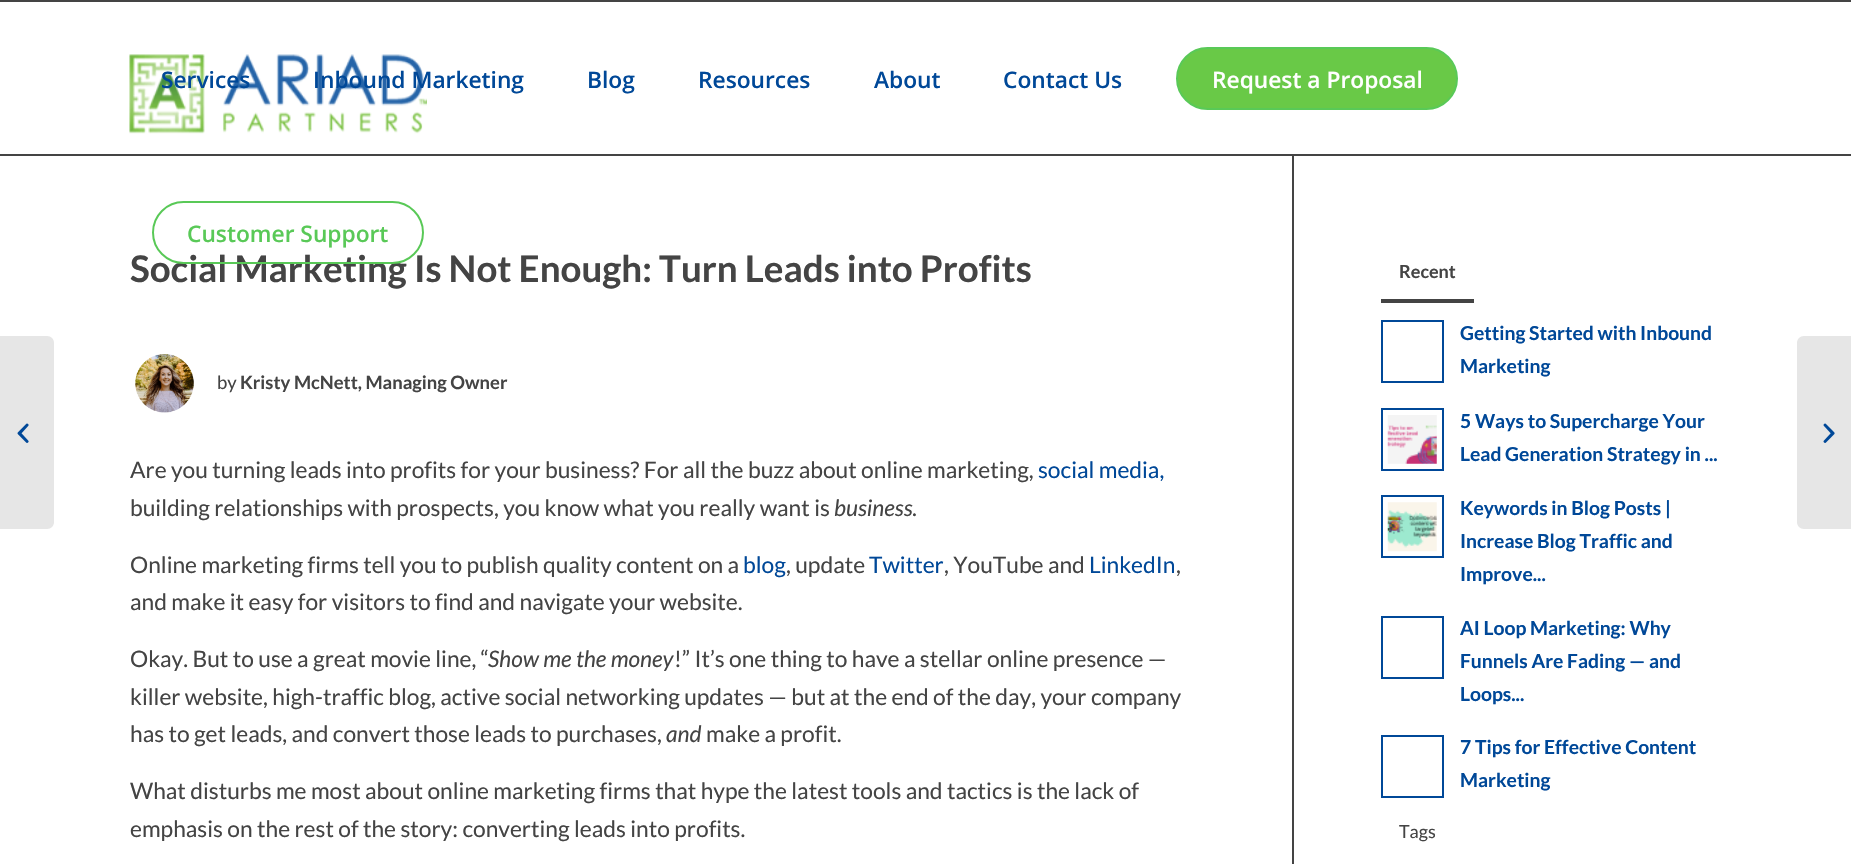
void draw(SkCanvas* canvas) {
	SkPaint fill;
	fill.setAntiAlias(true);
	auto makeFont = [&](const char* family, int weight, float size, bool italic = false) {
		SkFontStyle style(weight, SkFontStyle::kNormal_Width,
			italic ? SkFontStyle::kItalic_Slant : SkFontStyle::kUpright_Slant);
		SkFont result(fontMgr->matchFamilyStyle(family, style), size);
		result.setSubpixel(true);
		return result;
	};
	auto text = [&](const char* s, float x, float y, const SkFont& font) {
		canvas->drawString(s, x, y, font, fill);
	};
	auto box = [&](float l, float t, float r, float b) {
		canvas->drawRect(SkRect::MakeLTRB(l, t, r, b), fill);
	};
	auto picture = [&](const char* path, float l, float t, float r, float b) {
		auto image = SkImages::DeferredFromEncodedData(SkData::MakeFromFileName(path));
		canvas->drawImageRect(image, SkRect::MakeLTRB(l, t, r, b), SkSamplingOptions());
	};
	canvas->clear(0xFFFFFFFF);
	fill.setColor(0xFF444444);
	box(0, 0, 1851, 2);
	picture("image0.png", 129, 54, 427, 134);
	fill.setColor(0xFF69C947);
	canvas->drawRoundRect(SkRect::MakeLTRB(1177, 48, 1457, 109), 30.5f, 30.5f, fill);
	fill.setStyle(SkPaint::kStroke_Style);
	fill.setStrokeWidth(2);
	fill.setColor(0xFF59C957);
	canvas->drawRoundRect(SkRect::MakeLTRB(1177, 48, 1457, 109), 30.5f, 30.5f, fill);
	fill.setStyle(SkPaint::kFill_Style);
	fill.setColor(0xFFE6E6E6);
	canvas->drawPath(SkPathBuilder().moveTo(0, 336).lineTo(47, 336).cubicTo(51, 336, 54, 339, 54, 343).lineTo(54, 522).cubicTo(54, 526, 51, 529, 47, 529).lineTo(0, 529).close().detach(), fill);
	picture("image1.png", 17, 423, 29, 443);
	fill.setColor(0xFF444444);
	box(0, 154, 1851, 156);
	box(1292, 156, 1294, 864);
	picture("image2.png", 135, 354, 194, 413);
	box(1381, 299, 1474, 303);
	fill.setStyle(SkPaint::kStroke_Style);
	fill.setColor(0xFF004898);
	canvas->drawRect(SkRect::MakeLTRB(1382, 321, 1443, 382), fill);
	canvas->drawRect(SkRect::MakeLTRB(1382, 409, 1443, 470), fill);
	picture("image3.png", 1387, 415, 1437, 464);
	canvas->drawRect(SkRect::MakeLTRB(1382, 496, 1443, 557), fill);
	picture("image4.png", 1387, 502, 1437, 552);
	canvas->drawRect(SkRect::MakeLTRB(1382, 617, 1443, 678), fill);
	canvas->drawRect(SkRect::MakeLTRB(1382, 736, 1443, 797), fill);
	fill.setStyle(SkPaint::kFill_Style);
	fill.setColor(0xFFE6E6E6);
	canvas->drawPath(SkPathBuilder().moveTo(1804, 336).lineTo(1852, 336).lineTo(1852, 529).lineTo(1804, 529).cubicTo(1800, 529, 1797, 526, 1797, 522).lineTo(1797, 343).cubicTo(1797, 339, 1800, 336, 1804, 336).close().detach(), fill);
	picture("image5.png", 1823, 423, 1835, 443);
	auto font1 = makeFont("Open Sans", 600, 22.75f);
	fill.setColor(0xFF004898);
	text("Services", 161, 88, font1);
	text("Inbound Marketing", 313, 88, font1);
	text("Blog", 587, 88, font1);
	text("Resources", 698, 88, font1);
	text("About", 874, 88, font1);
	text("Contact Us", 1003, 88, font1);
	fill.setColor(0xFFFFFFFF);
	text("Request a Proposal", 1212, 88, font1);
	auto font2 = makeFont("Lato", 700, 36.75f);
	fill.setColor(0xFF444444);
	text("Social Marketing Is Not Enough: Turn Leads into Profits", 130, 282, font2);
	fill.setStyle(SkPaint::kStroke_Style);
	fill.setColor(0xFF59C957);
	canvas->drawRoundRect(SkRect::MakeLTRB(153, 202, 423, 263), 30.5f, 30.5f, fill);
	fill.setStyle(SkPaint::kFill_Style);
	text("Customer Support", 187, 242, font1);
	auto font3 = makeFont("Lato", 400, 18.4f);
	fill.setColor(0xFF444444);
	text("by", 217, 389, font3);
	auto font4 = makeFont("Lato", 700, 18.4f);
	text("Kristy McNett, Managing Owner", 240, 389, font4);
	auto font5 = makeFont("Lato", 400, 22.75f);
	text("Are you turning leads into profits for your business? For all the buzz about online marketing,", 130, 478, font5);
	fill.setColor(0xFF004898);
	text("social media,", 1038, 478, font5);
	fill.setColor(0xFF444444);
	text("building relationships with prospects, you know what you really want is", 130, 516, font5);
	auto font6 = makeFont("Lato", 400, 22.75f, true);
	text("business", 834, 516, font6);
	text(".", 912, 516, font5);
	text("Online marketing firms tell you to publish quality content on a", 130, 573, font5);
	fill.setColor(0xFF004898);
	text("blog", 743, 573, font5);
	fill.setColor(0xFF444444);
	text(", update", 786, 573, font5);
	fill.setColor(0xFF004898);
	text("Twitter", 869, 573, font5);
	fill.setColor(0xFF444444);
	text(", YouTube and", 944, 573, font5);
	fill.setColor(0xFF004898);
	text("LinkedIn", 1089, 573, font5);
	fill.setColor(0xFF444444);
	text(",", 1176, 573, font5);
	text("and make it easy for visitors to find and navigate your website.", 130, 610, font5);
	text("Okay. But to use a great movie line, “", 130, 667, font5);
	text("Show me the money", 488, 667, font6);
	text("!” It’s one thing to have a stellar online presence —", 674, 667, font5);
	text("killer website, high-traffic blog, active social networking updates — but at the end of the day, your company", 130, 705, font5);
	text("has to get leads, and convert those leads to purchases,", 130, 742, font5);
	text("and", 666, 742, font6);
	text("make a profit.", 706, 742, font5);
	text("What disturbs me most about online marketing firms that hype the latest tools and tactics is the lack of", 130, 799, font5);
	text("emphasis on the rest of the story: converting leads into profits.", 130, 837, font5);
	auto font7 = makeFont("Lato", 700, 18);
	text("Recent", 1399, 278, font7);
	auto font8 = makeFont("Lato", 700, 19.3f);
	fill.setColor(0xFF004898);
	text("Getting Started with Inbound", 1460, 340, font8);
	text("Marketing", 1460, 373, font8);
	text("5 Ways to Supercharge Your", 1460, 428, font8);
	text("Lead Generation Strategy in ...", 1460, 461, font8);
	text("Keywords in Blog Posts |", 1460, 515, font8);
	text("Increase Blog Traffic and", 1460, 548, font8);
	text("Improve...", 1460, 581, font8);
	text("AI Loop Marketing: Why", 1460, 635, font8);
	text("Funnels Are Fading — and", 1460, 668, font8);
	text("Loops...", 1460, 701, font8);
	text("7 Tips for Effective Content", 1460, 754, font8);
	text("Marketing", 1460, 787, font8);
	auto font9 = makeFont("Lato", 400, 18);
	fill.setColor(0xFF444444);
	text("Tags", 1399, 838, font9);
}
